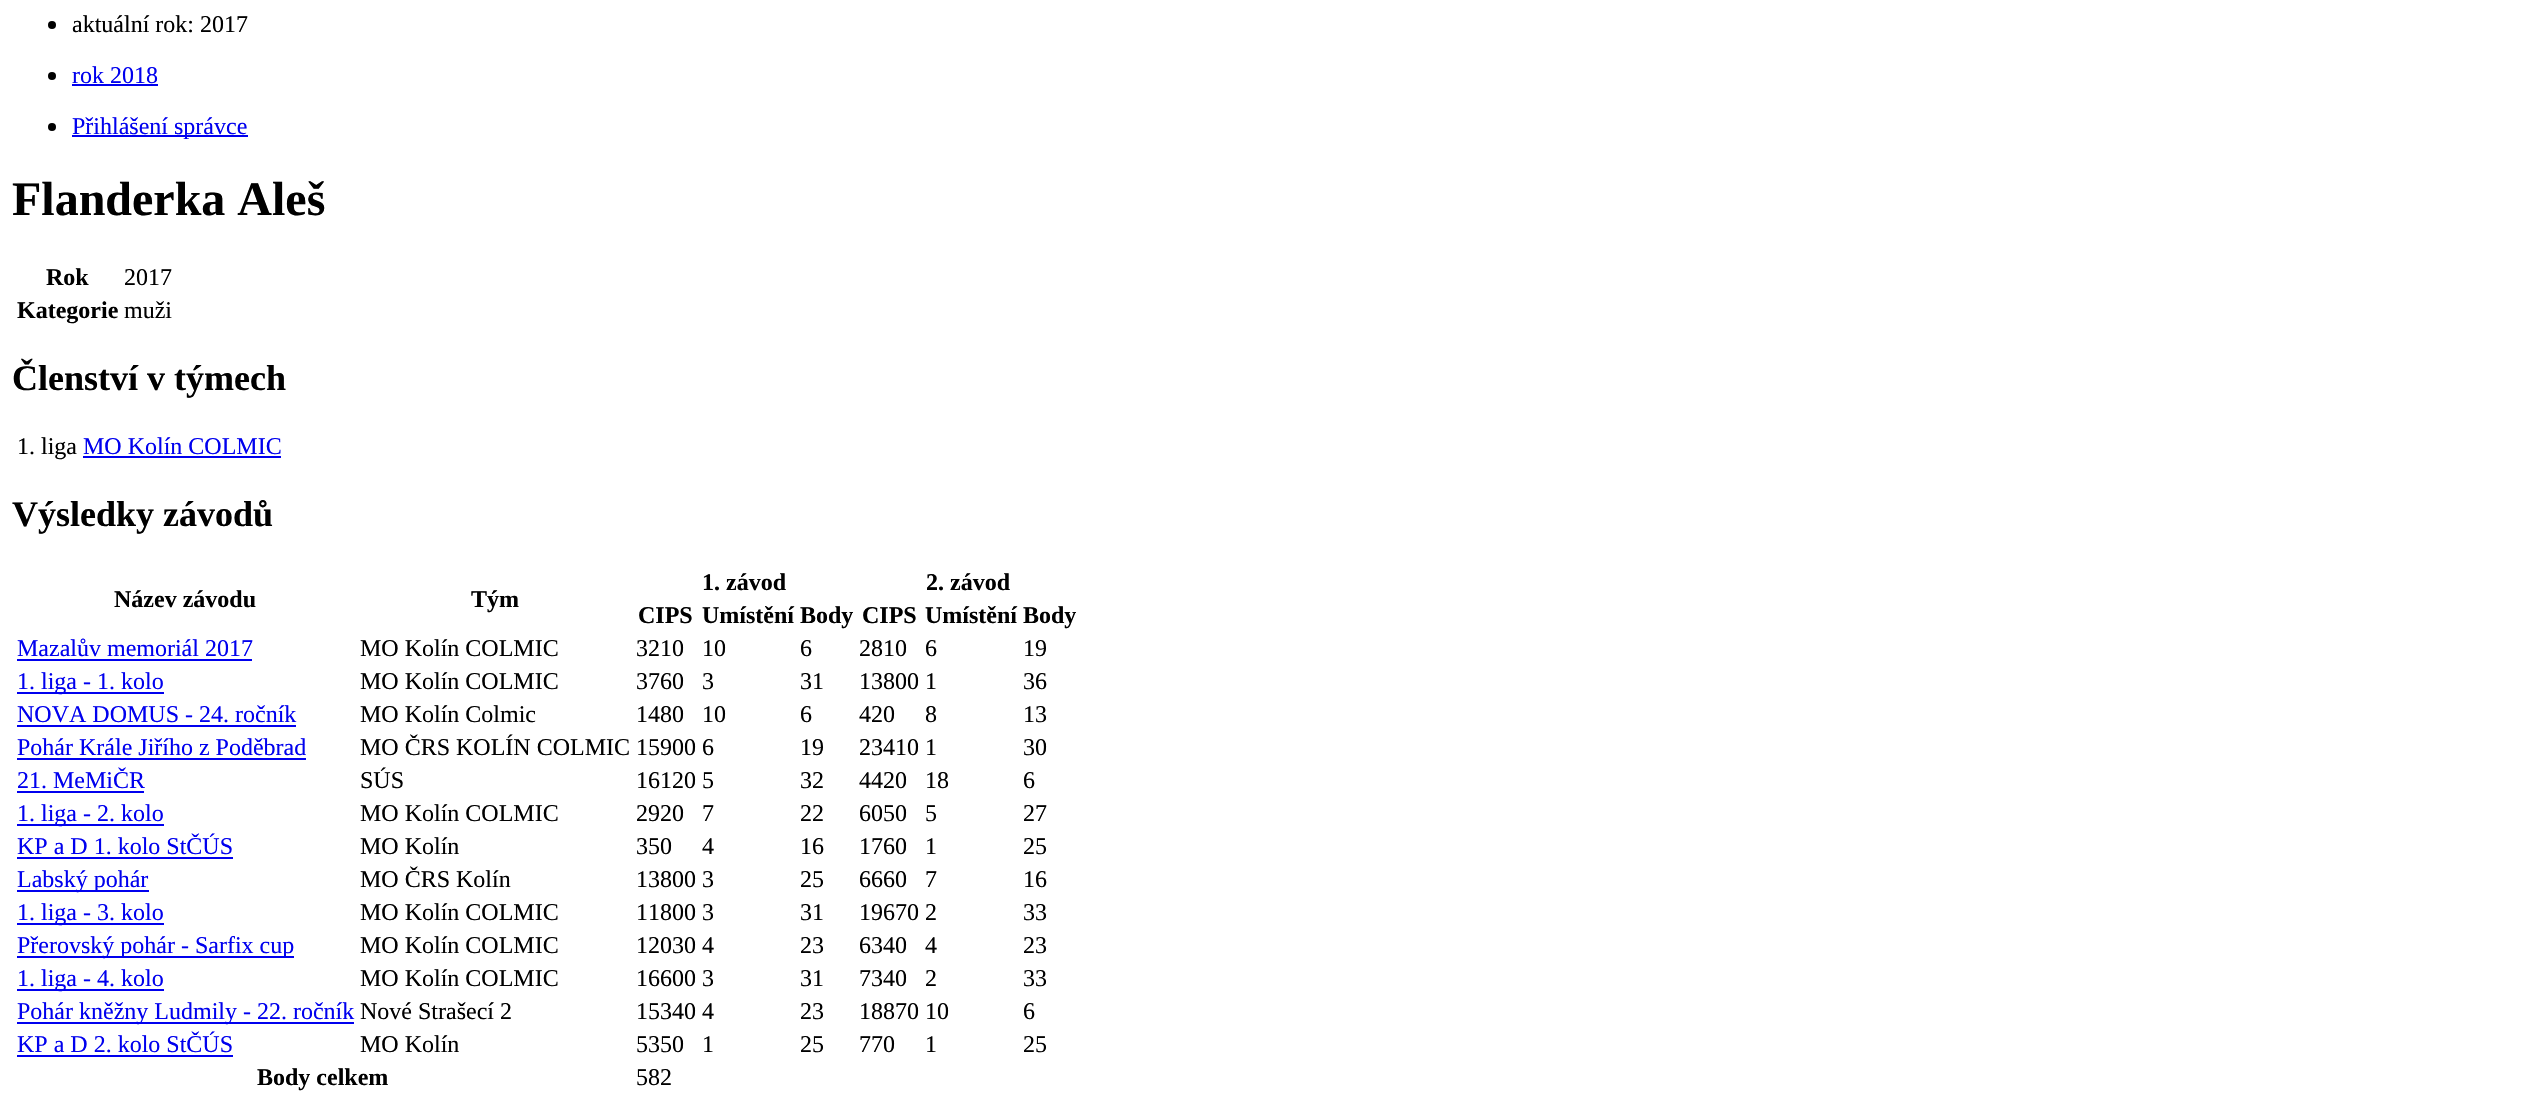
void draw(SkCanvas* canvas) {
	SkPaint fill;
	fill.setAntiAlias(true);
	auto makeFont = [&](const char* family, int weight, float size, bool italic = false) {
		SkFontStyle style(weight, SkFontStyle::kNormal_Width,
			italic ? SkFontStyle::kItalic_Slant : SkFontStyle::kUpright_Slant);
		SkFont result(fontMgr->matchFamilyStyle(family, style), size);
		result.setSubpixel(true);
		return result;
	};
	auto text = [&](const char* s, float x, float y, const SkFont& font) {
		canvas->drawString(s, x, y, font, fill);
	};
	auto box = [&](float l, float t, float r, float b) {
		canvas->drawRect(SkRect::MakeLTRB(l, t, r, b), fill);
	};
	canvas->clear(0xFFFFFFFF);
	fill.setColor(0xFF000000);
	canvas->drawCircle(52, 25, 4, fill);
	canvas->drawCircle(52, 76, 4, fill);
	fill.setColor(0xFF0000EE);
	box(72, 84, 158, 86);
	fill.setColor(0xFF000000);
	canvas->drawCircle(52, 127, 4, fill);
	fill.setColor(0xFF0000EE);
	box(72, 135, 248, 137);
	box(83, 456, 281, 458);
	box(17, 659, 252, 661);
	box(17, 692, 164, 694);
	box(17, 725, 296, 727);
	box(17, 758, 306, 760);
	box(17, 791, 144, 793);
	box(17, 824, 164, 826);
	box(17, 857, 233, 859);
	box(17, 890, 149, 892);
	box(17, 923, 164, 925);
	box(17, 956, 294, 958);
	box(17, 989, 164, 991);
	box(17, 1022, 354, 1024);
	box(17, 1055, 233, 1057);
	auto font1 = makeFont("Liberation Serif", 400, 24);
	fill.setColor(0xFF000000);
	text("aktuální rok: 2017", 72, 32, font1);
	fill.setColor(0xFF0000EE);
	text("rok 2018", 72, 83, font1);
	text("Přihlášení správce", 72, 134, font1);
	auto font2 = makeFont("Liberation Serif", 700, 48);
	fill.setColor(0xFF000000);
	text("Flanderka Aleš", 12, 215, font2);
	auto font3 = makeFont("Liberation Serif", 700, 24);
	text("Rok", 46, 285, font3);
	text("2017", 124, 285, font1);
	text("Kategorie", 17, 318, font3);
	text("muži", 124, 318, font1);
	auto font4 = makeFont("Liberation Serif", 700, 36);
	text("Členství v týmech", 12, 390, font4);
	text("1. liga", 17, 454, font1);
	fill.setColor(0xFF0000EE);
	text("MO Kolín COLMIC", 83, 454, font1);
	fill.setColor(0xFF000000);
	text("Výsledky závodů", 12, 526, font4);
	text("1. závod", 702, 590, font3);
	text("2. závod", 926, 590, font3);
	text("Název závodu", 114, 607, font3);
	text("Tým", 471, 607, font3);
	text("CIPS", 638, 623, font3);
	text("Umístění Body", 702, 623, font3);
	text("CIPS", 862, 623, font3);
	text("Umístění Body", 925, 623, font3);
	fill.setColor(0xFF0000EE);
	text("Mazalův memoriál 2017", 17, 656, font1);
	fill.setColor(0xFF000000);
	text("MO Kolín COLMIC", 360, 656, font1);
	text("3210", 636, 656, font1);
	text("10", 702, 656, font1);
	text("6", 800, 656, font1);
	text("2810", 859, 656, font1);
	text("6", 925, 656, font1);
	text("19", 1023, 656, font1);
	fill.setColor(0xFF0000EE);
	text("1. liga - 1. kolo", 17, 689, font1);
	fill.setColor(0xFF000000);
	text("MO Kolín COLMIC", 360, 689, font1);
	text("3760", 636, 689, font1);
	text("3", 702, 689, font1);
	text("31", 800, 689, font1);
	text("13800 1", 859, 689, font1);
	text("36", 1023, 689, font1);
	fill.setColor(0xFF0000EE);
	text("NOVA DOMUS - 24. ročník", 17, 722, font1);
	fill.setColor(0xFF000000);
	text("MO Kolín Colmic", 360, 722, font1);
	text("1480", 636, 722, font1);
	text("10", 702, 722, font1);
	text("6", 800, 722, font1);
	text("420", 859, 722, font1);
	text("8", 925, 722, font1);
	text("13", 1023, 722, font1);
	fill.setColor(0xFF0000EE);
	text("Pohár Krále Jiřího z Poděbrad", 17, 755, font1);
	fill.setColor(0xFF000000);
	text("MO ČRS KOLÍN COLMIC 15900 6", 360, 755, font1);
	text("19", 800, 755, font1);
	text("23410 1", 859, 755, font1);
	text("30", 1023, 755, font1);
	fill.setColor(0xFF0000EE);
	text("21. MeMiČR", 17, 788, font1);
	fill.setColor(0xFF000000);
	text("SÚS", 360, 788, font1);
	text("16120 5", 636, 788, font1);
	text("32", 800, 788, font1);
	text("4420", 859, 788, font1);
	text("18", 925, 788, font1);
	text("6", 1023, 788, font1);
	fill.setColor(0xFF0000EE);
	text("1. liga - 2. kolo", 17, 821, font1);
	fill.setColor(0xFF000000);
	text("MO Kolín COLMIC", 360, 821, font1);
	text("2920", 636, 821, font1);
	text("7", 702, 821, font1);
	text("22", 800, 821, font1);
	text("6050", 859, 821, font1);
	text("5", 925, 821, font1);
	text("27", 1023, 821, font1);
	fill.setColor(0xFF0000EE);
	text("KP a D 1. kolo StČÚS", 17, 854, font1);
	fill.setColor(0xFF000000);
	text("MO Kolín", 360, 854, font1);
	text("350", 636, 854, font1);
	text("4", 702, 854, font1);
	text("16", 800, 854, font1);
	text("1760", 859, 854, font1);
	text("1", 925, 854, font1);
	text("25", 1023, 854, font1);
	fill.setColor(0xFF0000EE);
	text("Labský pohár", 17, 887, font1);
	fill.setColor(0xFF000000);
	text("MO ČRS Kolín", 360, 887, font1);
	text("13800 3", 636, 887, font1);
	text("25", 800, 887, font1);
	text("6660", 859, 887, font1);
	text("7", 925, 887, font1);
	text("16", 1023, 887, font1);
	fill.setColor(0xFF0000EE);
	text("1. liga - 3. kolo", 17, 920, font1);
	fill.setColor(0xFF000000);
	text("MO Kolín COLMIC", 360, 920, font1);
	text("11800 3", 636, 920, font1);
	text("31", 800, 920, font1);
	text("19670 2", 859, 920, font1);
	text("33", 1023, 920, font1);
	fill.setColor(0xFF0000EE);
	text("Přerovský pohár - Sarfix cup", 17, 953, font1);
	fill.setColor(0xFF000000);
	text("MO Kolín COLMIC", 360, 953, font1);
	text("12030 4", 636, 953, font1);
	text("23", 800, 953, font1);
	text("6340", 859, 953, font1);
	text("4", 925, 953, font1);
	text("23", 1023, 953, font1);
	fill.setColor(0xFF0000EE);
	text("1. liga - 4. kolo", 17, 986, font1);
	fill.setColor(0xFF000000);
	text("MO Kolín COLMIC", 360, 986, font1);
	text("16600 3", 636, 986, font1);
	text("31", 800, 986, font1);
	text("7340", 859, 986, font1);
	text("2", 925, 986, font1);
	text("33", 1023, 986, font1);
	fill.setColor(0xFF0000EE);
	text("Pohár kněžny Ludmily - 22. ročník", 17, 1019, font1);
	fill.setColor(0xFF000000);
	text("Nové Strašecí 2", 360, 1019, font1);
	text("15340 4", 636, 1019, font1);
	text("23", 800, 1019, font1);
	text("18870 10", 859, 1019, font1);
	text("6", 1023, 1019, font1);
	fill.setColor(0xFF0000EE);
	text("KP a D 2. kolo StČÚS", 17, 1052, font1);
	fill.setColor(0xFF000000);
	text("MO Kolín", 360, 1052, font1);
	text("5350", 636, 1052, font1);
	text("1", 702, 1052, font1);
	text("25", 800, 1052, font1);
	text("770", 859, 1052, font1);
	text("1", 925, 1052, font1);
	text("25", 1023, 1052, font1);
	text("Body celkem", 257, 1085, font3);
	text("582", 636, 1085, font1);
}
